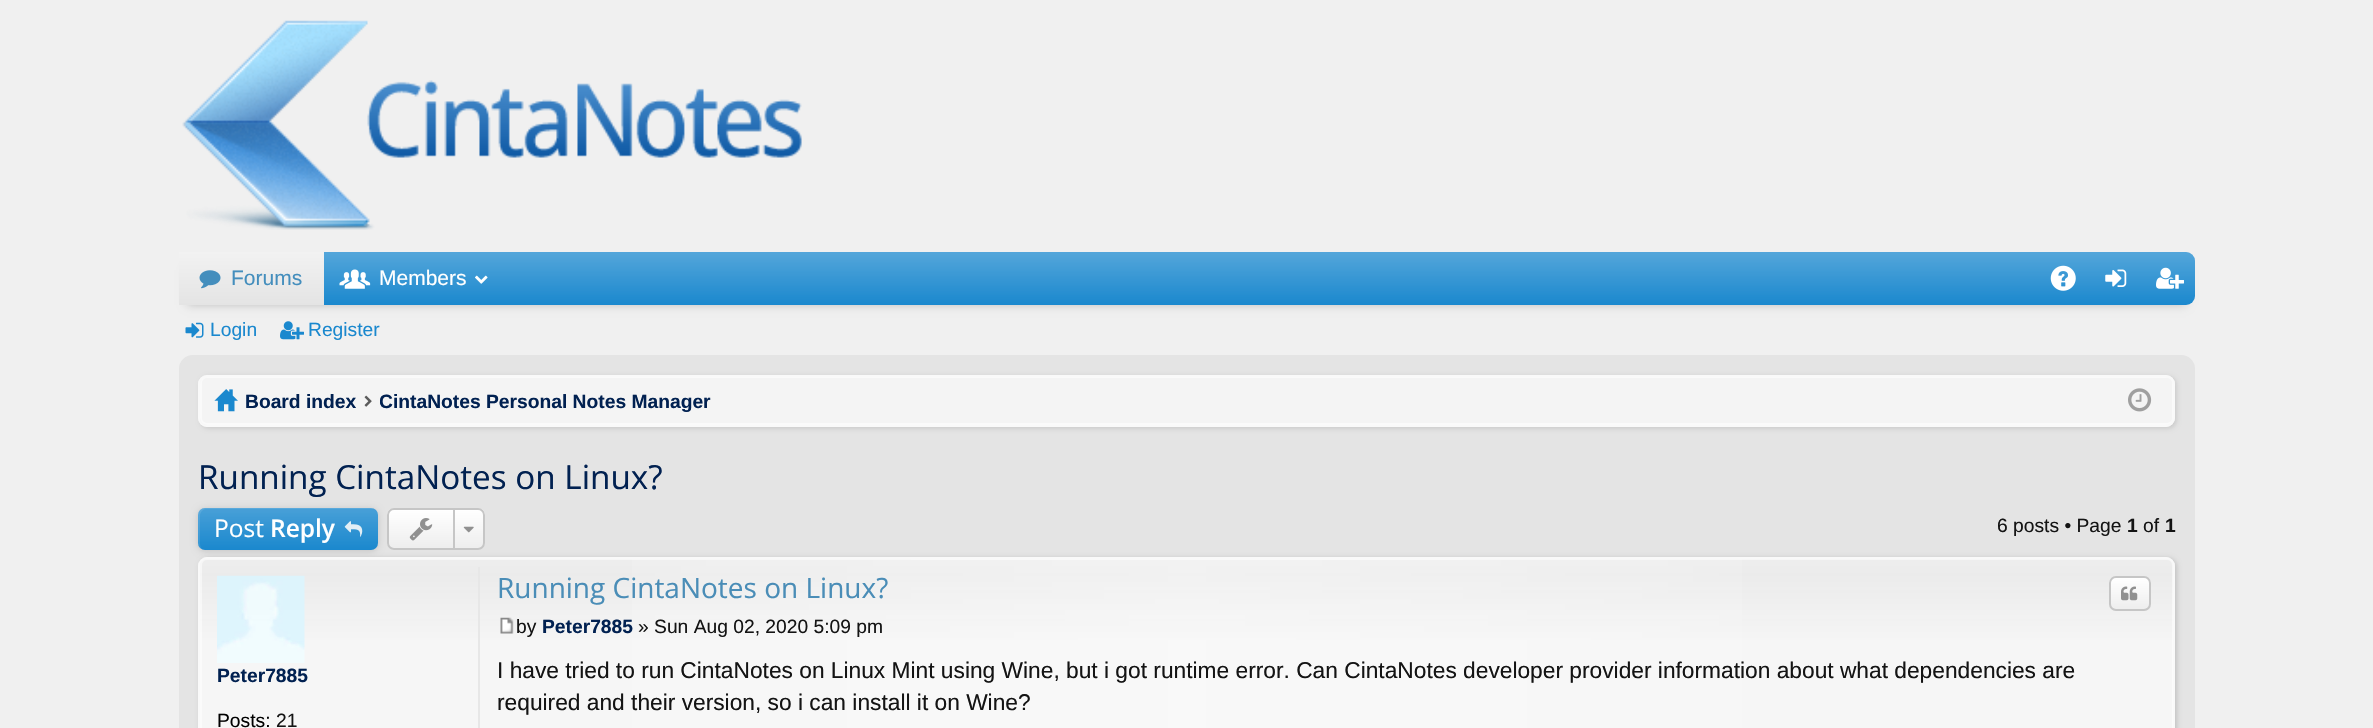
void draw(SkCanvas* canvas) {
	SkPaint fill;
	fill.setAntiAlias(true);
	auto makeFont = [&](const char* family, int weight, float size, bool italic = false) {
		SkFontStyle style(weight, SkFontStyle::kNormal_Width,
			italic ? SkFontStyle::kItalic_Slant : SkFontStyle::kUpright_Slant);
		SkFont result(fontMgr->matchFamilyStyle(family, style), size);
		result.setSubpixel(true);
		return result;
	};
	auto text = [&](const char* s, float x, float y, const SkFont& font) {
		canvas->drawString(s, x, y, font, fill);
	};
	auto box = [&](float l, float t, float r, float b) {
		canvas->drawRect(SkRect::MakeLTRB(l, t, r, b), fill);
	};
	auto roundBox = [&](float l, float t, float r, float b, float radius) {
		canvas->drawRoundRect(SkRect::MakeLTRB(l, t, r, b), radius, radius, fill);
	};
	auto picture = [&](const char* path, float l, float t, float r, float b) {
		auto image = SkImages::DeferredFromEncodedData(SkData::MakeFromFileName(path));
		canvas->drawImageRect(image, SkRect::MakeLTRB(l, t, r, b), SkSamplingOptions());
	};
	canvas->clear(0xFFF0F0F0);
	picture("image0.png", 182, 20, 802, 230);
	fill.setColor(0x33000000);
	fill.setMaskFilter(SkMaskFilter::MakeBlur(kNormal_SkBlurStyle, 4.5f));
	canvas->drawRect(SkRect::MakeLTRB(187, 270, 2186, 305), fill);
	fill.setMaskFilter(nullptr);
	fill.setColor(0xFF1A88CE);
	roundBox(179, 252, 2195, 305, 9);
	{
		const SkColor colors[] = {0x40FFFFFF, 0x00FFFFFF};
		const float stops[] = {0, 1};
		const SkPoint ends[] = {{1187, 252}, {1187, 305}};
		fill.setShader(SkGradientShader::MakeLinear(ends, colors, stops, 2, SkTileMode::kClamp));
		fill.setAlpha(255);
	}
	roundBox(179, 252, 2195, 305, 9);
	{
		const SkColor colors[] = {0xFFF2F2F2, 0xFFE4E4E4};
		const float stops[] = {0, 1};
		const SkPoint ends[] = {{251, 252}, {251, 305}};
		fill.setShader(SkGradientShader::MakeLinear(ends, colors, stops, 2, SkTileMode::kClamp));
		fill.setAlpha(255);
	}
	box(179, 252, 324, 305);
	picture("image1.png", 199, 270, 221, 289);
	picture("image2.png", 339, 269, 371, 289);
	picture("image3.png", 475, 275, 488, 284);
	picture("image4.png", 2050, 265, 2076, 291);
	picture("image5.png", 2105, 269, 2127, 287);
	picture("image6.png", 2156, 267, 2184, 289);
	picture("image7.png", 185, 322, 204, 338);
	picture("image8.png", 280, 321, 304, 340);
	fill.setShader(nullptr);
	fill.setColor(0xFFE4E4E4);
	canvas->drawRoundRect(SkRect::MakeLTRB(180, 356, 2194, 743), 13, 13, fill);
	fill.setStyle(SkPaint::kStroke_Style);
	fill.setStrokeWidth(2);
	canvas->drawRoundRect(SkRect::MakeLTRB(180, 356, 2194, 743), 13, 13, fill);
	fill.setStyle(SkPaint::kFill_Style);
	fill.setColor(0x1A000000);
	fill.setMaskFilter(SkMaskFilter::MakeBlur(kNormal_SkBlurStyle, 2));
	canvas->drawRoundRect(SkRect::MakeLTRB(200, 376, 2177, 429), 9, 9, fill);
	fill.setMaskFilter(nullptr);
	fill.setColor(0xFFF4F4F4);
	roundBox(198, 375, 2175, 427, 9);
	fill.setStyle(SkPaint::kStroke_Style);
	fill.setColor(0xFFFAFAFA);
	canvas->drawRoundRect(SkRect::MakeLTRB(201, 377, 2173, 424), 6, 6, fill);
	fill.setColor(0xFFF9F9F9);
	canvas->drawRoundRect(SkRect::MakeLTRB(199, 376, 2174, 426), 8, 8, fill);
	picture("image9.png", 214, 389, 238, 412);
	picture("image10.png", 364, 395, 372, 407);
	picture("image11.png", 2128, 388, 2152, 412);
	fill.setStyle(SkPaint::kFill_Style);
	fill.setColor(0x26000000);
	fill.setMaskFilter(SkMaskFilter::MakeBlur(kNormal_SkBlurStyle, 3.5f));
	canvas->drawRoundRect(SkRect::MakeLTRB(198, 509, 378, 551), 7, 7, fill);
	fill.setMaskFilter(nullptr);
	fill.setColor(0xFF1A88CE);
	roundBox(198, 508, 378, 550, 7);
	{
		const SkColor colors[] = {0x33FFFFFF, 0x00FFFFFF};
		const float stops[] = {0, 1};
		const SkPoint ends[] = {{288, 508}, {288, 550}};
		fill.setShader(SkGradientShader::MakeLinear(ends, colors, stops, 2, SkTileMode::kClamp));
		fill.setAlpha(255);
	}
	roundBox(198, 508, 378, 550, 7);
	fill.setShader(nullptr);
	fill.setColor(0x1AFFFFFF);
	canvas->drawPath(SkPathBuilder().moveTo(206, 509).lineTo(375, 509).cubicTo(374, 508, 372, 508, 371, 508).lineTo(205, 508).cubicTo(201, 508, 198, 511, 198, 515).lineTo(198, 543).cubicTo(198, 546, 200, 548, 202, 549).cubicTo(201, 548, 200, 546, 200, 544).lineTo(200, 516).cubicTo(200, 512, 203, 509, 206, 509).close().detach(), fill);
	picture("image12.png", 344, 521, 363, 537);
	fill.setColor(0xFFEEEEEE);
	roundBox(387, 508, 485, 550, 7);
	canvas->save();
	canvas->clipPath(SkPathBuilder().moveTo(394, 508).lineTo(478, 508).cubicTo(482, 508, 485, 511, 485, 515).lineTo(485, 543).cubicTo(485, 547, 482, 550, 478, 550).lineTo(394, 550).cubicTo(390, 550, 387, 547, 387, 543).lineTo(387, 515).cubicTo(387, 511, 390, 508, 394, 508).close().detach(), true);
	{
		const SkColor colors[] = {0xFFFFFFFF, 0x00FFFFFF};
		const float stops[] = {0, 1};
		const SkPoint ends[] = {{436, 509}, {436, 548}};
		fill.setShader(SkGradientShader::MakeLinear(ends, colors, stops, 2, SkTileMode::kClamp));
		fill.setAlpha(255);
	}
	box(387, 509, 485, 547);
	canvas->restore();
	fill.setStyle(SkPaint::kStroke_Style);
	fill.setShader(nullptr);
	fill.setColor(0xFFC6C6C6);
	canvas->drawRoundRect(SkRect::MakeLTRB(388, 509, 484, 549), 6, 6, fill);
	picture("image13.png", 409, 518, 433, 541);
	fill.setStyle(SkPaint::kFill_Style);
	box(453, 509, 455, 548);
	picture("image14.png", 463, 526, 474, 533);
	fill.setColor(0x26000000);
	fill.setMaskFilter(SkMaskFilter::MakeBlur(kNormal_SkBlurStyle, 2.5f));
	canvas->drawRoundRect(SkRect::MakeLTRB(200, 558, 2177, 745), 9, 9, fill);
	fill.setMaskFilter(nullptr);
	fill.setColor(0xFFF6F6F6);
	roundBox(198, 557, 2175, 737, 9);
	canvas->save();
	canvas->clipPath(SkPathBuilder().moveTo(207, 557).lineTo(2166, 557).cubicTo(2171, 557, 2175, 561, 2175, 566).lineTo(2175, 826).cubicTo(2175, 831, 2171, 835, 2166, 835).lineTo(207, 835).cubicTo(202, 835, 198, 831, 198, 826).lineTo(198, 566).cubicTo(198, 561, 202, 557, 207, 557).close().detach(), true);
	{
		const SkColor colors[] = {0x33CCCCCC, 0x40CCCCCC, 0x00CCCCCC};
		const float stops[] = {0, 0.06f, 0.32f};
		const SkPoint ends[] = {{1187, 558}, {1187, 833}};
		fill.setShader(SkGradientShader::MakeLinear(ends, colors, stops, 3, SkTileMode::kClamp));
		fill.setAlpha(255);
	}
	box(198, 558, 2175, 640);
	canvas->restore();
	{
		const SkColor colors[] = {0x00FFFFFF, 0x4DFFFFFF, 0x00FFFFFF};
		const float stops[] = {0, 0.5f, 1};
		const SkPoint ends[] = {{200, 696}, {2174, 696}};
		fill.setShader(SkGradientShader::MakeLinear(ends, colors, stops, 3, SkTileMode::kClamp));
		fill.setAlpha(255);
	}
	box(632, 559, 1742, 728);
	fill.setStyle(SkPaint::kStroke_Style);
	fill.setShader(nullptr);
	fill.setColor(0x80FFFFFF);
	canvas->drawRoundRect(SkRect::MakeLTRB(201, 559, 2173, 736), 6, 6, fill);
	fill.setColor(0xFFF9F9F9);
	canvas->drawRoundRect(SkRect::MakeLTRB(199, 558, 2174, 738), 8, 8, fill);
	fill.setStyle(SkPaint::kFill_Style);
	fill.setColor(0xFFE7E7E7);
	box(478, 567, 480, 728);
	picture("image15.png", 217, 575, 305, 663);
	canvas->save();
	canvas->clipPath(SkPathBuilder().moveTo(2116, 576).lineTo(2144, 576).cubicTo(2148, 576, 2151, 579, 2151, 583).lineTo(2151, 604).cubicTo(2151, 608, 2148, 611, 2144, 611).lineTo(2116, 611).cubicTo(2112, 611, 2109, 608, 2109, 604).lineTo(2109, 583).cubicTo(2109, 579, 2112, 576, 2116, 576).close().detach(), true);
	{
		const SkColor colors[] = {0xFFFFFFFF, 0xFFEEEEEE};
		const float stops[] = {0, 1};
		const SkPoint ends[] = {{2130, 578}, {2130, 609}};
		fill.setShader(SkGradientShader::MakeLinear(ends, colors, stops, 2, SkTileMode::kClamp));
		fill.setAlpha(255);
	}
	box(2109, 578, 2151, 609);
	canvas->restore();
	fill.setStyle(SkPaint::kStroke_Style);
	fill.setShader(nullptr);
	fill.setColor(0xFFC6C6C6);
	canvas->drawRoundRect(SkRect::MakeLTRB(2110, 577, 2150, 610), 6, 6, fill);
	picture("image16.png", 2121, 586, 2138, 601);
	picture("image17.png", 500, 617, 514, 634);
	auto font1 = makeFont("Liberation Sans", 400, 21);
	fill.setStyle(SkPaint::kFill_Style);
	fill.setColor(0xFF448EBD);
	text("Forums", 231, 285, font1);
	fill.setColor(0xFFFFFFFF);
	text("Members", 379, 285, font1);
	auto font2 = makeFont("Liberation Sans", 400, 19.25f);
	fill.setColor(0xFF1A88CE);
	text("Login", 210, 336, font2);
	text("Register", 308, 336, font2);
	auto font3 = makeFont("Liberation Sans", 700, 19.25f);
	fill.setColor(0xFF012151);
	text("Board index", 245, 408, font3);
	canvas->save();
	canvas->clipRect(SkRect::MakeLTRB(380, 382, 711, 420));
	text("CintaNotes Personal Notes Manager", 379, 408, font3);
	canvas->restore();
	auto font4 = makeFont("Open Sans", 400, 33.25f);
	text("Running CintaNotes on Linux?", 198, 489, font4);
	auto font5 = makeFont("Open Sans", 400, 24.5f);
	fill.setColor(0xFFFFFFFF);
	text("Post", 214, 537, font5);
	auto font6 = makeFont("Open Sans", 600, 24.5f);
	text("Reply", 270, 537, font6);
	fill.setColor(0xFF141414);
	text("6 posts • Page", 1997, 532, font2);
	text("1", 2127, 532, font3);
	text("of", 2143, 532, font2);
	text("1", 2165, 532, font3);
	fill.setColor(0xFF012151);
	text("Peter7885", 217, 682, font3);
	fill.setColor(0xFF000000);
	text("Posts:", 217, 727, font2);
	fill.setColor(0xFF141414);
	text("21", 276, 727, font2);
	auto font7 = makeFont("Open Sans", 400, 28);
	fill.setColor(0xFF4A8DB7);
	text("Running CintaNotes on Linux?", 497, 598, font7);
	fill.setColor(0xFF141414);
	text("by", 516, 633, font2);
	fill.setColor(0xFF012151);
	text("Peter7885", 542, 633, font3);
	fill.setColor(0xFF141414);
	text("» Sun Aug 02, 2020 5:09 pm", 638, 633, font2);
	auto font8 = makeFont("Liberation Sans", 400, 22.75f);
	text("I have tried to run CintaNotes on Linux Mint using Wine, but i got runtime error. Can CintaNotes developer provider information about what dependencies are", 497, 678, font8);
	text("required and their version, so i can install it on Wine?", 497, 710, font8);
}
